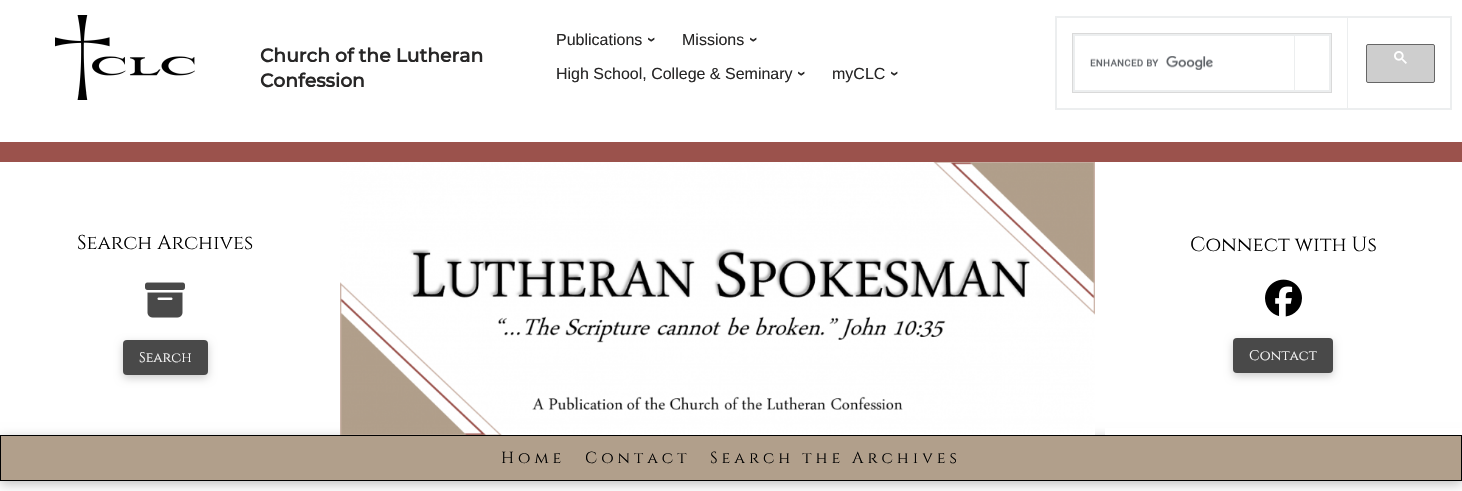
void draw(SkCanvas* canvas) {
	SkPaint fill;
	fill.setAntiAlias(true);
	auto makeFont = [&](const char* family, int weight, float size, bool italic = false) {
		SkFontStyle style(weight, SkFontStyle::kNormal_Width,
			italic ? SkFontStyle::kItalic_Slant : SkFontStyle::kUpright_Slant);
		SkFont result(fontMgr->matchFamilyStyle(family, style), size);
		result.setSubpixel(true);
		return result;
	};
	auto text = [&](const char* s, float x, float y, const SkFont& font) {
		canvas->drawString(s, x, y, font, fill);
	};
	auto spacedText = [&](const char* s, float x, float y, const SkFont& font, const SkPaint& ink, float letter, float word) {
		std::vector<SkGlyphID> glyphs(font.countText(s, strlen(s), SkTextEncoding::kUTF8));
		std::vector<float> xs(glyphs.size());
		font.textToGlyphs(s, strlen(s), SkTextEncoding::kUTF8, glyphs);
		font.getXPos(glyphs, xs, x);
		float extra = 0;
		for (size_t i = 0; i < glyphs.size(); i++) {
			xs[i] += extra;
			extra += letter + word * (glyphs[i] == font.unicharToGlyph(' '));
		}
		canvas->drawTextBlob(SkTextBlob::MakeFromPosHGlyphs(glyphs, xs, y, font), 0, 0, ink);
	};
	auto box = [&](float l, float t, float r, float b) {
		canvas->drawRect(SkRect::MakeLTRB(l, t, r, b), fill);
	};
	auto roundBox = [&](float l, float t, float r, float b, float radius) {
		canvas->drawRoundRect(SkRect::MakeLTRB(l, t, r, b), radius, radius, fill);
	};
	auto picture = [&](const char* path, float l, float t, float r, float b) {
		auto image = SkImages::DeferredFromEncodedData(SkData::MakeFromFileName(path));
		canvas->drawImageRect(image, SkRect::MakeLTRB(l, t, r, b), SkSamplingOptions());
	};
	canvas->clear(0xFFFFFFFF);
	picture("image0.png", 55, 15, 195, 100);
	fill.setColor(0xFFECEEEF);
	box(1347, 17, 1348, 110);
	box(1055, 16, 1452, 18);
	box(1450, 16, 1452, 110);
	box(1055, 108, 1452, 110);
	box(1055, 16, 1057, 110);
	fill.setStyle(SkPaint::kStroke_Style);
	fill.setStrokeWidth(1);
	fill.setColor(0xFFD9D9D9);
	canvas->drawRect(SkRect::MakeLTRB(1072.5f, 33.5f, 1331.5f, 92.5f), fill);
	fill.setStyle(SkPaint::kFill_Style);
	fill.setColor(0xFFECEEEF);
	box(1294, 35, 1295, 91);
	box(1073, 34, 1331, 36);
	box(1329, 34, 1331, 92);
	box(1073, 90, 1331, 92);
	box(1073, 34, 1075, 92);
	picture("image1.png", 1090, 56, 1213, 70);
	fill.setColor(0xFFCECECE);
	canvas->drawRoundRect(SkRect::MakeLTRB(1366.5f, 44.5f, 1434.5f, 82.5f), 1.5f, 1.5f, fill);
	fill.setStyle(SkPaint::kStroke_Style);
	fill.setColor(0xFF666666);
	canvas->drawRoundRect(SkRect::MakeLTRB(1366.5f, 44.5f, 1434.5f, 82.5f), 1.5f, 1.5f, fill);
	picture("image2.png", 1394, 51, 1407, 64);
	fill.setStyle(SkPaint::kFill_Style);
	fill.setColor(0xFF9B524C);
	box(0, 142, 1462, 162);
	picture("image3.png", 145, 282, 185, 318);
	fill.setColor(0x33000000);
	fill.setMaskFilter(SkMaskFilter::MakeBlur(kNormal_SkBlurStyle, 4));
	canvas->drawRoundRect(SkRect::MakeLTRB(123, 343, 208, 378), 4, 4, fill);
	fill.setMaskFilter(nullptr);
	fill.setColor(0xFF494949);
	roundBox(123, 340, 208, 375, 4);
	fill.setColor(0x40000000);
	fill.setMaskFilter(SkMaskFilter::MakeBlur(kNormal_SkBlurStyle, 5.5f));
	canvas->drawRect(SkRect::MakeLTRB(0, 438, 1462, 484), fill);
	fill.setMaskFilter(nullptr);
	picture("image4.png", 340, 162, 1095, 435);
	fill.setColor(0xFFFFFFFF);
	box(1105, 428, 1462, 435);
	picture("image5.png", 1265, 279, 1302, 317);
	fill.setColor(0x33000000);
	fill.setMaskFilter(SkMaskFilter::MakeBlur(kNormal_SkBlurStyle, 4));
	canvas->drawRoundRect(SkRect::MakeLTRB(1233, 341, 1333, 376), 4, 4, fill);
	fill.setMaskFilter(nullptr);
	fill.setColor(0xFF494949);
	roundBox(1233, 338, 1333, 373, 4);
	fill.setColor(0xFFB19F8B);
	canvas->drawRect(SkRect::MakeLTRB(0.5f, 435.5f, 1461.5f, 480.5f), fill);
	fill.setStyle(SkPaint::kStroke_Style);
	fill.setColor(0xFF000000);
	canvas->drawRect(SkRect::MakeLTRB(0.5f, 435.5f, 1461.5f, 480.5f), fill);
	auto font1 = makeFont("Montserrat", 700, 18.75f);
	fill.setStyle(SkPaint::kFill_Style);
	fill.setColor(0xFF272626);
	text("Church of the Lutheran", 260, 62, font1);
	text("Confession", 260, 87, font1);
	auto font2 = makeFont("Liberation Sans", 400, 16);
	text("Publications", 556, 45, font2);
	auto font3 = makeFont("Liberation Sans", 700, 16);
	canvas->save();
	canvas->rotate(90, 647, 37);
	text("›", 647, 37, font3);
	canvas->restore();
	text("Missions", 682, 45, font2);
	canvas->save();
	canvas->rotate(90, 749, 37);
	text("›", 749, 37, font3);
	canvas->restore();
	text("High School, College & Seminary", 556, 79, font2);
	canvas->save();
	canvas->rotate(90, 797, 71);
	text("›", 797, 71, font3);
	canvas->restore();
	text("myCLC", 832, 79, font2);
	canvas->save();
	canvas->rotate(90, 890, 71);
	text("›", 890, 71, font3);
	canvas->restore();
	auto font4 = makeFont("Cinzel", 400, 20);
	fill.setColor(0xFF000000);
	text("Search Archives", 77, 249, font4);
	auto font5 = makeFont("Cinzel", 400, 14);
	fill.setColor(0xFFFFFFFF);
	text("Search", 139, 362, font5);
	auto font6 = makeFont("Cinzel", 400, 20.25f);
	fill.setColor(0xFF000000);
	text("Connect with Us", 1190, 251, font6);
	fill.setColor(0xFFFFFFFF);
	text("Contact", 1249, 360, font5);
	auto font7 = makeFont("Cinzel", 400, 16);
	fill.setColor(0xFF000000);
	spacedText("Home", 501, 463, font7, fill, 4, 0);
	spacedText("Contact", 585, 463, font7, fill, 4, 0);
	spacedText("Search the Archives", 710, 463, font7, fill, 4, 0);
}
